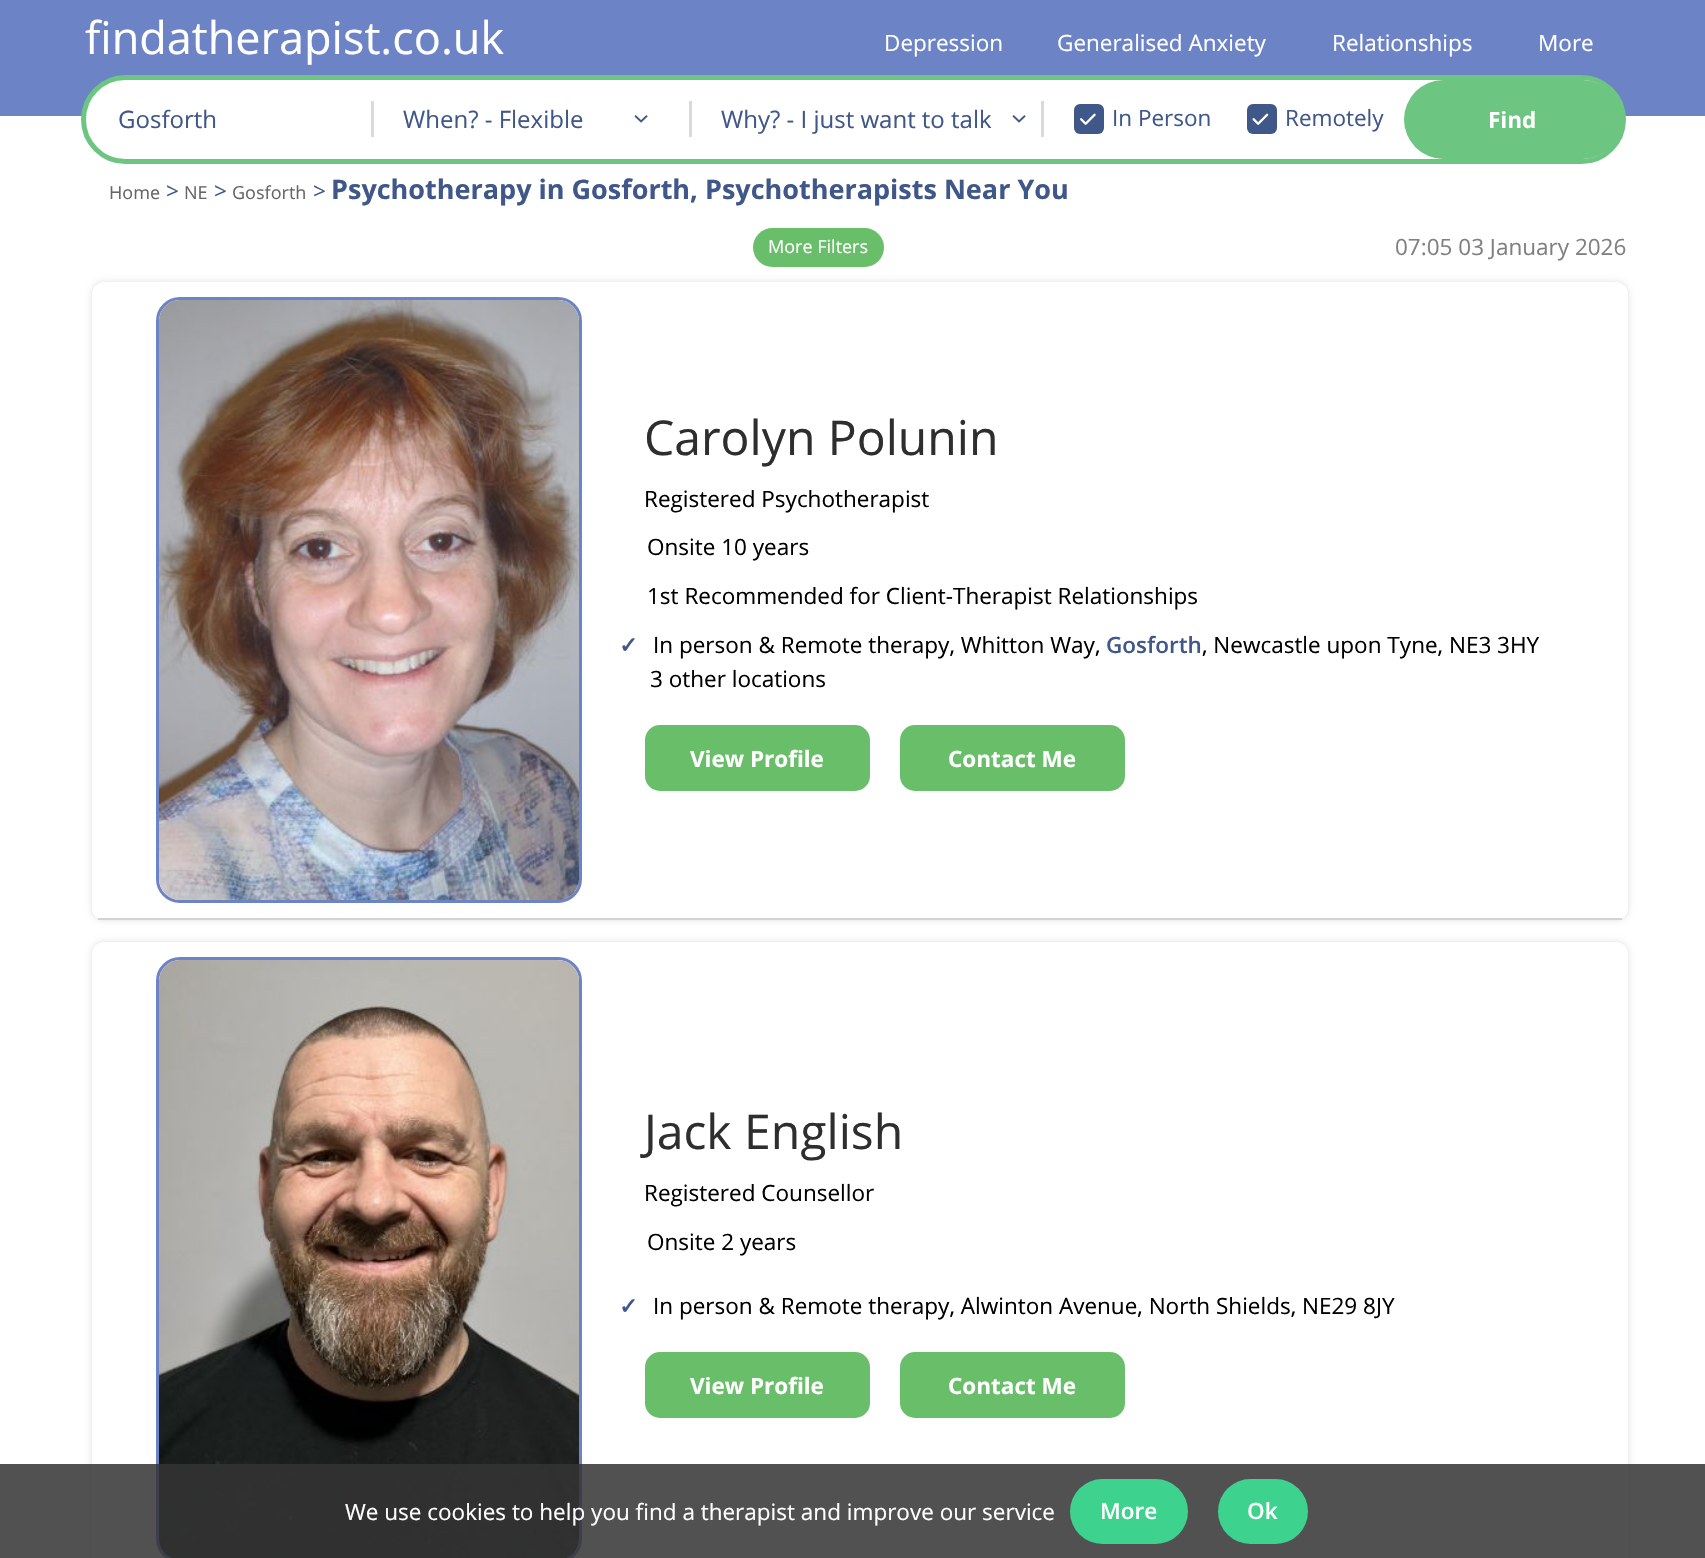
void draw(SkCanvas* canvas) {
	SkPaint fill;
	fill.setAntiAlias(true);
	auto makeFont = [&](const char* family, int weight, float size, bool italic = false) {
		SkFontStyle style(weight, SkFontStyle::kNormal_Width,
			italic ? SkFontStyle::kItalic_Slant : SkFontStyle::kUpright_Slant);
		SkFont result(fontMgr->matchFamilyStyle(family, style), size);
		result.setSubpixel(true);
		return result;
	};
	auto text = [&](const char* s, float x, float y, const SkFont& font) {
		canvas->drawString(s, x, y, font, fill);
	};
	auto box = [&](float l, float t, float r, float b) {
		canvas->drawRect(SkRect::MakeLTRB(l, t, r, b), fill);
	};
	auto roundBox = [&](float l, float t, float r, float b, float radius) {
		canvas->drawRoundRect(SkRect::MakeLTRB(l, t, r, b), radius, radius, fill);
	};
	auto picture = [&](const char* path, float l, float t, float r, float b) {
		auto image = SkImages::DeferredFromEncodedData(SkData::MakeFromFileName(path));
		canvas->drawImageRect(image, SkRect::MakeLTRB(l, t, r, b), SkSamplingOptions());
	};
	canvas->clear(0xFFFFFFFF);
	fill.setColor(0xFF6C83C5);
	box(0, 0, 1705, 116);
	fill.setColor(0xFFFFFFFF);
	canvas->drawRoundRect(SkRect::MakeLTRB(83.5f, 77.5f, 1623.5f, 161.5f), 42, 42, fill);
	fill.setStyle(SkPaint::kStroke_Style);
	fill.setStrokeWidth(5);
	fill.setColor(0xFF6CC581);
	canvas->drawRoundRect(SkRect::MakeLTRB(83.5f, 77.5f, 1623.5f, 161.5f), 42, 42, fill);
	fill.setStyle(SkPaint::kFill_Style);
	fill.setColor(0xFFDADADA);
	box(371, 101, 374, 137);
	box(689, 101, 692, 137);
	picture("image0.png", 634, 115, 648, 123);
	box(1041, 101, 1044, 137);
	picture("image0.png", 1012, 115, 1026, 123);
	fill.setColor(0xFF405789);
	roundBox(1074, 104, 1104, 134, 6);
	picture("image1.png", 1080, 113, 1096, 125);
	roundBox(1247, 104, 1277, 134, 6);
	picture("image2.png", 1252, 113, 1269, 125);
	fill.setColor(0xFF6CC581);
	roundBox(1404, 80, 1622, 159, 39.5f);
	fill.setColor(0xFF69BF69);
	roundBox(753, 228, 884, 267, 19.5f);
	fill.setColor(0x21000000);
	fill.setMaskFilter(SkMaskFilter::MakeBlur(kNormal_SkBlurStyle, 3));
	canvas->drawRoundRect(SkRect::MakeLTRB(92, 282, 1628, 920), 12, 12, fill);
	fill.setMaskFilter(nullptr);
	fill.setColor(0xFFFFFFFF);
	roundBox(92, 282, 1628, 920, 12);
	fill.setColor(0xFFD3D3D3);
	box(98, 918, 1622, 920);
	fill.setStyle(SkPaint::kStroke_Style);
	fill.setStrokeWidth(3);
	fill.setColor(0xFF6C83C5);
	canvas->drawRoundRect(SkRect::MakeLTRB(157.5f, 298.5f, 580.5f, 901.5f), 22.5f, 22.5f, fill);
	picture("image3.png", 159, 300, 579, 900);
	fill.setStyle(SkPaint::kFill_Style);
	fill.setColor(0xFF69BF69);
	roundBox(645, 725, 870, 791, 15);
	roundBox(900, 725, 1125, 791, 15);
	fill.setColor(0x21000000);
	fill.setMaskFilter(SkMaskFilter::MakeBlur(kNormal_SkBlurStyle, 3));
	canvas->drawRoundRect(SkRect::MakeLTRB(92, 942, 1628, 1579), 12, 12, fill);
	fill.setMaskFilter(nullptr);
	fill.setColor(0xFFFFFFFF);
	roundBox(92, 942, 1628, 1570, 12);
	fill.setStyle(SkPaint::kStroke_Style);
	fill.setColor(0xFF6C83C5);
	canvas->drawRoundRect(SkRect::MakeLTRB(157.5f, 958.5f, 580.5f, 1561.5f), 22.5f, 22.5f, fill);
	picture("image4.png", 159, 960, 579, 1558);
	fill.setStyle(SkPaint::kFill_Style);
	fill.setColor(0xFF69BF69);
	roundBox(645, 1352, 870, 1418, 15);
	roundBox(900, 1352, 1125, 1418, 15);
	fill.setColor(0xD9323232);
	box(0, 1464, 1705, 1558);
	fill.setColor(0xFF3DD28D);
	roundBox(1070, 1479, 1188, 1544, 32.5f);
	roundBox(1218, 1479, 1308, 1544, 32.5f);
	auto font1 = makeFont("Open Sans", 400, 45);
	fill.setColor(0xFFFFFFFF);
	text("findatherapist.co.uk", 85, 54, font1);
	auto font2 = makeFont("Open Sans", 400, 22.5f);
	text("Depression", 884, 51, font2);
	text("Generalised Anxiety", 1057, 51, font2);
	text("Relationships", 1332, 51, font2);
	text("More", 1538, 51, font2);
	auto font3 = makeFont("Open Sans", 400, 24);
	fill.setColor(0xFF405789);
	text("Gosforth", 118, 128, font3);
	text("When? - Flexible", 403, 128, font3);
	text("Why? - I just want to talk", 721, 128, font3);
	text("In Person", 1112, 126, font2);
	text("Remotely", 1285, 126, font2);
	auto font4 = makeFont("Open Sans", 700, 22.5f);
	fill.setColor(0xFFFFFFFF);
	text("Find", 1488, 128, font4);
	auto font5 = makeFont("Open Sans", 400, 18);
	fill.setColor(0xFF666666);
	text("Home", 109, 199, font5);
	fill.setColor(0xFF405789);
	text(">", 166, 199, font2);
	fill.setColor(0xFF666666);
	text("NE", 184, 199, font5);
	fill.setColor(0xFF405789);
	text(">", 214, 199, font2);
	fill.setColor(0xFF666666);
	text("Gosforth", 232, 199, font5);
	fill.setColor(0xFF405789);
	text(">", 313, 199, font2);
	auto font6 = makeFont("Open Sans", 700, 27);
	text("Psychotherapy in Gosforth, Psychotherapists Near You", 331, 199, font6);
	fill.setColor(0xFFFFFFFF);
	text("More Filters", 768, 253, font5);
	fill.setColor(0xFF808080);
	text("07:05 03 January 2026", 1395, 255, font2);
	auto font7 = makeFont("Open Sans", 400, 48);
	fill.setColor(0xFF2E2E2E);
	text("Carolyn Polunin", 644, 455, font7);
	fill.setColor(0xFF000000);
	text("Registered Psychotherapist", 644, 507, font2);
	text("Onsite 10 years", 647, 555, font2);
	text("1st Recommended for Client-Therapist Relationships", 647, 604, font2);
	auto font8 = makeFont("DejaVu Sans", 700, 22.5f);
	fill.setColor(0xFF405789);
	text("✓", 619, 653, font8);
	fill.setColor(0xFF000000);
	text("In person & Remote therapy, Whitton Way,", 653, 653, font2);
	auto font9 = makeFont("Open Sans", 600, 22.5f);
	fill.setColor(0xFF405789);
	text("Gosforth", 1106, 653, font9);
	fill.setColor(0xFF000000);
	text(", Newcastle upon Tyne, NE3 3HY", 1202, 653, font2);
	text("3 other locations", 650, 687, font2);
	fill.setColor(0xFFFFFFFF);
	text("View Profile", 690, 767, font4);
	text("Contact Me", 948, 767, font4);
	fill.setColor(0xFF2E2E2E);
	text("Jack English", 644, 1149, font7);
	fill.setColor(0xFF000000);
	text("Registered Counsellor", 644, 1201, font2);
	text("Onsite 2 years", 647, 1250, font2);
	fill.setColor(0xFF405789);
	text("✓", 619, 1314, font8);
	fill.setColor(0xFF000000);
	text("In person & Remote therapy, Alwinton Avenue, North Shields, NE29 8JY", 653, 1314, font2);
	fill.setColor(0xFFFFFFFF);
	text("View Profile", 690, 1394, font4);
	text("Contact Me", 948, 1394, font4);
	text("We use cookies to help you find a therapist and improve our service", 345, 1520, font2);
	text("More", 1100, 1519, font9);
	text("Ok", 1247, 1519, font9);
}
